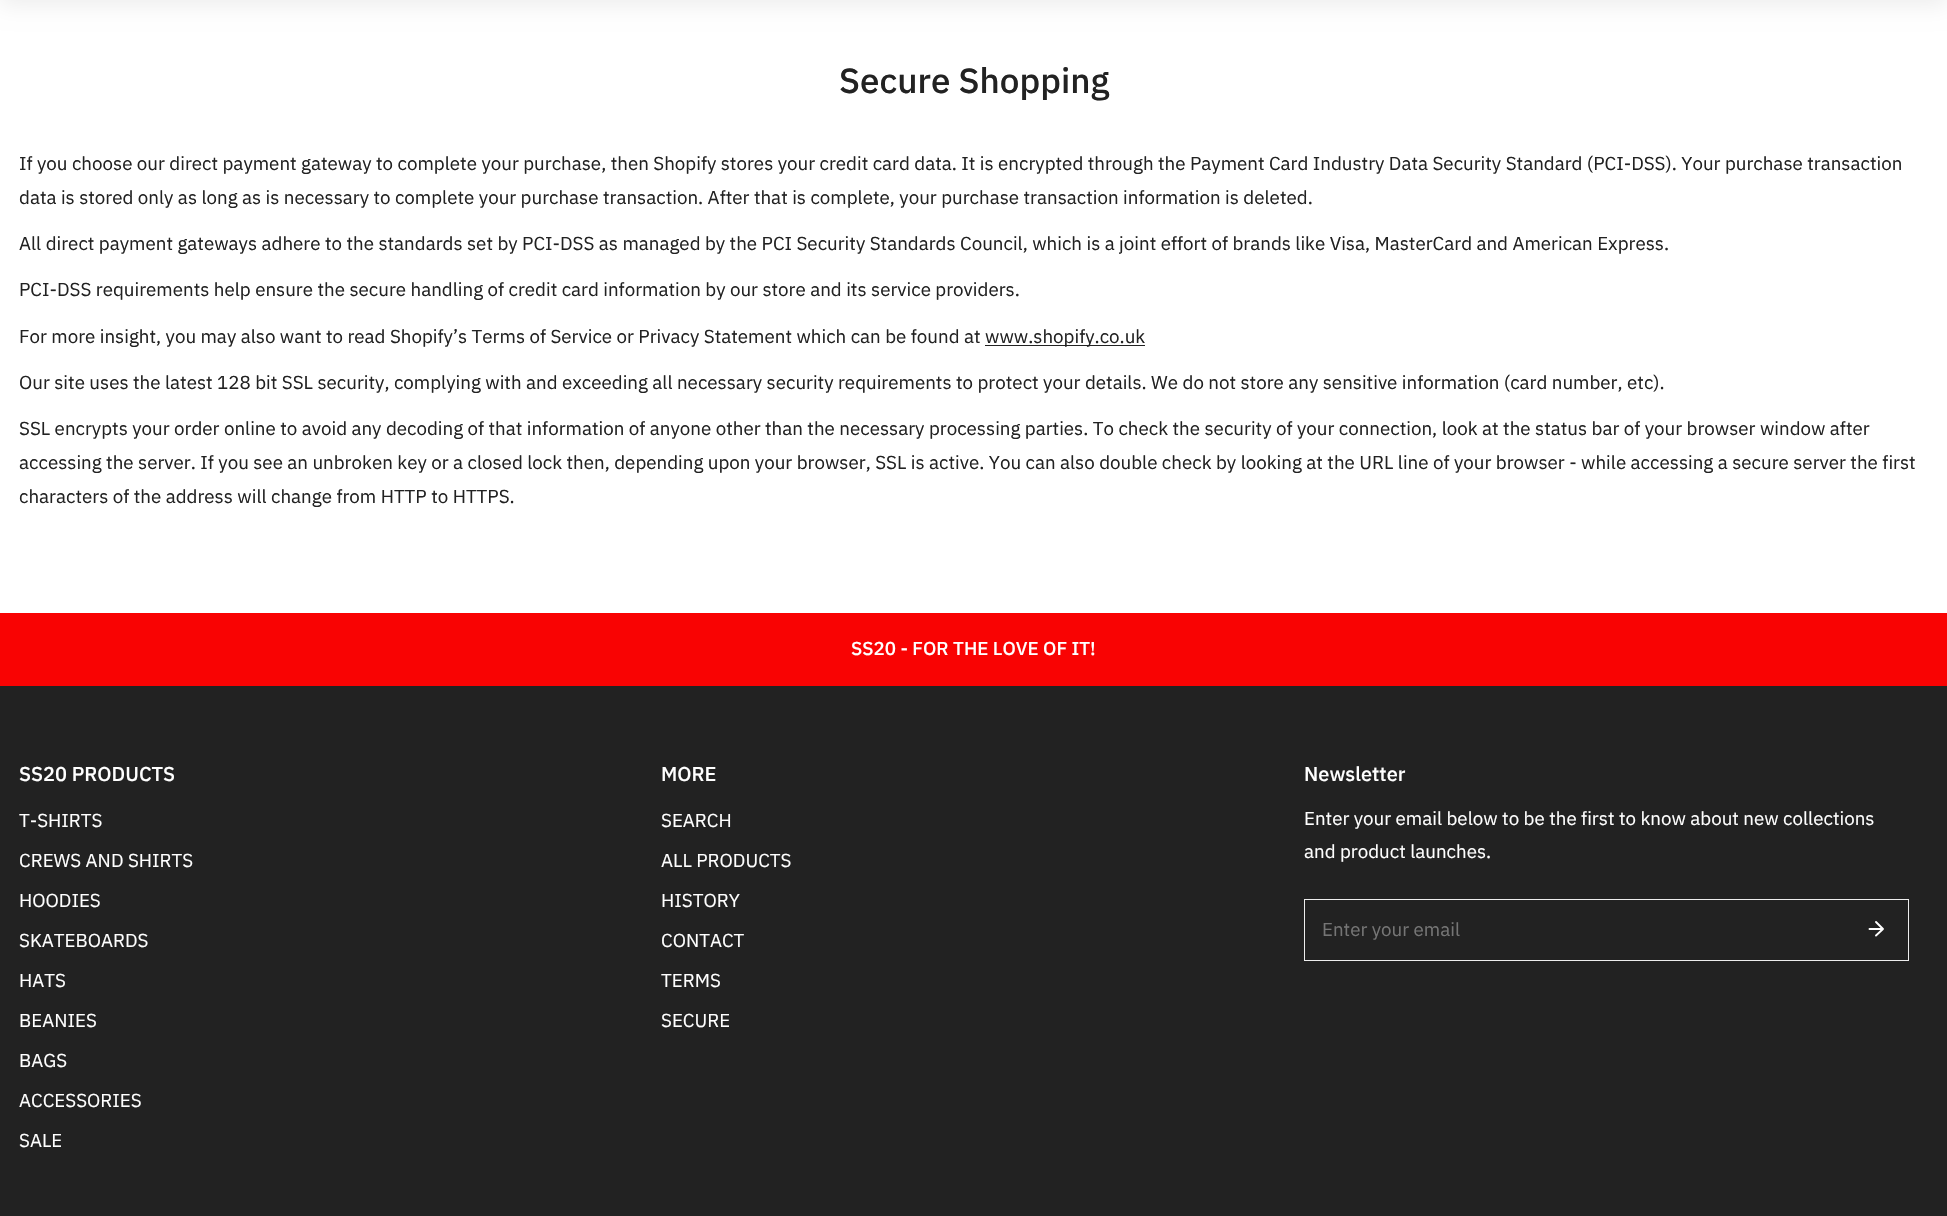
void draw(SkCanvas* canvas) {
	SkPaint fill;
	fill.setAntiAlias(true);
	auto makeFont = [&](const char* family, int weight, float size, bool italic = false) {
		SkFontStyle style(weight, SkFontStyle::kNormal_Width,
			italic ? SkFontStyle::kItalic_Slant : SkFontStyle::kUpright_Slant);
		SkFont result(fontMgr->matchFamilyStyle(family, style), size);
		result.setSubpixel(true);
		return result;
	};
	auto text = [&](const char* s, float x, float y, const SkFont& font) {
		canvas->drawString(s, x, y, font, fill);
	};
	auto box = [&](float l, float t, float r, float b) {
		canvas->drawRect(SkRect::MakeLTRB(l, t, r, b), fill);
	};
	canvas->clear(0xFFFFFFFF);
	fill.setColor(0x12000000);
	fill.setMaskFilter(SkMaskFilter::MakeBlur(kNormal_SkBlurStyle, 11));
	canvas->drawRect(SkRect::MakeLTRB(0, -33, 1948, 5), fill);
	fill.setMaskFilter(nullptr);
	fill.setColor(0xFF222222);
	box(985, 345, 1145, 346);
	fill.setColor(0xFFF90303);
	box(0, 613, 1947, 686);
	fill.setColor(0xFF222222);
	box(0, 686, 1947, 1216);
	fill.setStyle(SkPaint::kStroke_Style);
	fill.setStrokeWidth(1);
	fill.setColor(0xFFEEEEEE);
	canvas->drawRect(SkRect::MakeLTRB(1304.5f, 899.5f, 1908.5f, 960.5f), fill);
	fill.setStrokeWidth(1.9f);
	fill.setStrokeCap(SkPaint::kRound_Cap);
	fill.setStrokeJoin(SkPaint::kRound_Join);
	fill.setColor(0xFFFFFFFF);
	canvas->drawPath(SkPathBuilder().moveTo(1869.5f, 929).lineTo(1883, 929).moveTo(1876, 922).lineTo(1883, 929).lineTo(1876, 935.5f).detach(), fill);
	auto font1 = makeFont("IBM Plex Sans", 500, 35);
	fill.setStyle(SkPaint::kFill_Style);
	fill.setColor(0xFF222222);
	text("Secure Shopping", 839, 93, font1);
	auto font2 = makeFont("IBM Plex Sans", 400, 18.75f);
	text("If you choose our direct payment gateway to complete your purchase, then Shopify stores your credit card data. It is encrypted through the Payment Card Industry Data Security Standard (PCI-DSS). Your purchase transaction", 19, 170, font2);
	text("data is stored only as long as is necessary to complete your purchase transaction. After that is complete, your purchase transaction information is deleted.", 19, 204, font2);
	text("All direct payment gateways adhere to the standards set by PCI-DSS as managed by the PCI Security Standards Council, which is a joint effort of brands like Visa, MasterCard and American Express.", 19, 250, font2);
	text("PCI-DSS requirements help ensure the secure handling of credit card information by our store and its service providers.", 19, 296, font2);
	text("For more insight, you may also want to read Shopify’s Terms of Service or Privacy Statement which can be found at", 19, 343, font2);
	text("www.shopify.co.uk", 985, 343, font2);
	text("Our site uses the latest 128 bit SSL security, complying with and exceeding all necessary security requirements to protect your details. We do not store any sensitive information (card number, etc).", 19, 389, font2);
	text("SSL encrypts your order online to avoid any decoding of that information of anyone other than the necessary processing parties. To check the security of your connection, look at the status bar of your browser window after", 19, 435, font2);
	text("accessing the server. If you see an unbroken key or a closed lock then, depending upon your browser, SSL is active. You can also double check by looking at the URL line of your browser - while accessing a secure server the first", 19, 469, font2);
	text("characters of the address will change from HTTP to HTTPS.", 19, 503, font2);
	auto font3 = makeFont("IBM Plex Sans", 500, 18.75f);
	fill.setColor(0xFFFFFFFF);
	text("SS20 - FOR THE LOVE OF IT!", 851, 655, font3);
	auto font4 = makeFont("IBM Plex Sans", 500, 20);
	text("SS20 PRODUCTS", 19, 781, font4);
	text("T-SHIRTS", 19, 827, font2);
	text("CREWS AND SHIRTS", 19, 867, font2);
	text("HOODIES", 19, 907, font2);
	text("SKATEBOARDS", 19, 947, font2);
	text("HATS", 19, 987, font2);
	text("BEANIES", 19, 1027, font2);
	text("BAGS", 19, 1067, font2);
	text("ACCESSORIES", 19, 1107, font2);
	text("SALE", 19, 1147, font2);
	text("MORE", 661, 781, font4);
	text("SEARCH", 661, 827, font2);
	text("ALL PRODUCTS", 661, 867, font2);
	text("HISTORY", 661, 907, font2);
	text("CONTACT", 661, 947, font2);
	text("TERMS", 661, 987, font2);
	text("SECURE", 661, 1027, font2);
	text("Newsletter", 1304, 781, font4);
	text("Enter your email below to be the first to know about new collections", 1304, 825, font2);
	text("and product launches.", 1304, 858, font2);
	fill.setColor(0xFF757575);
	text("Enter your email", 1322, 936, font2);
}
